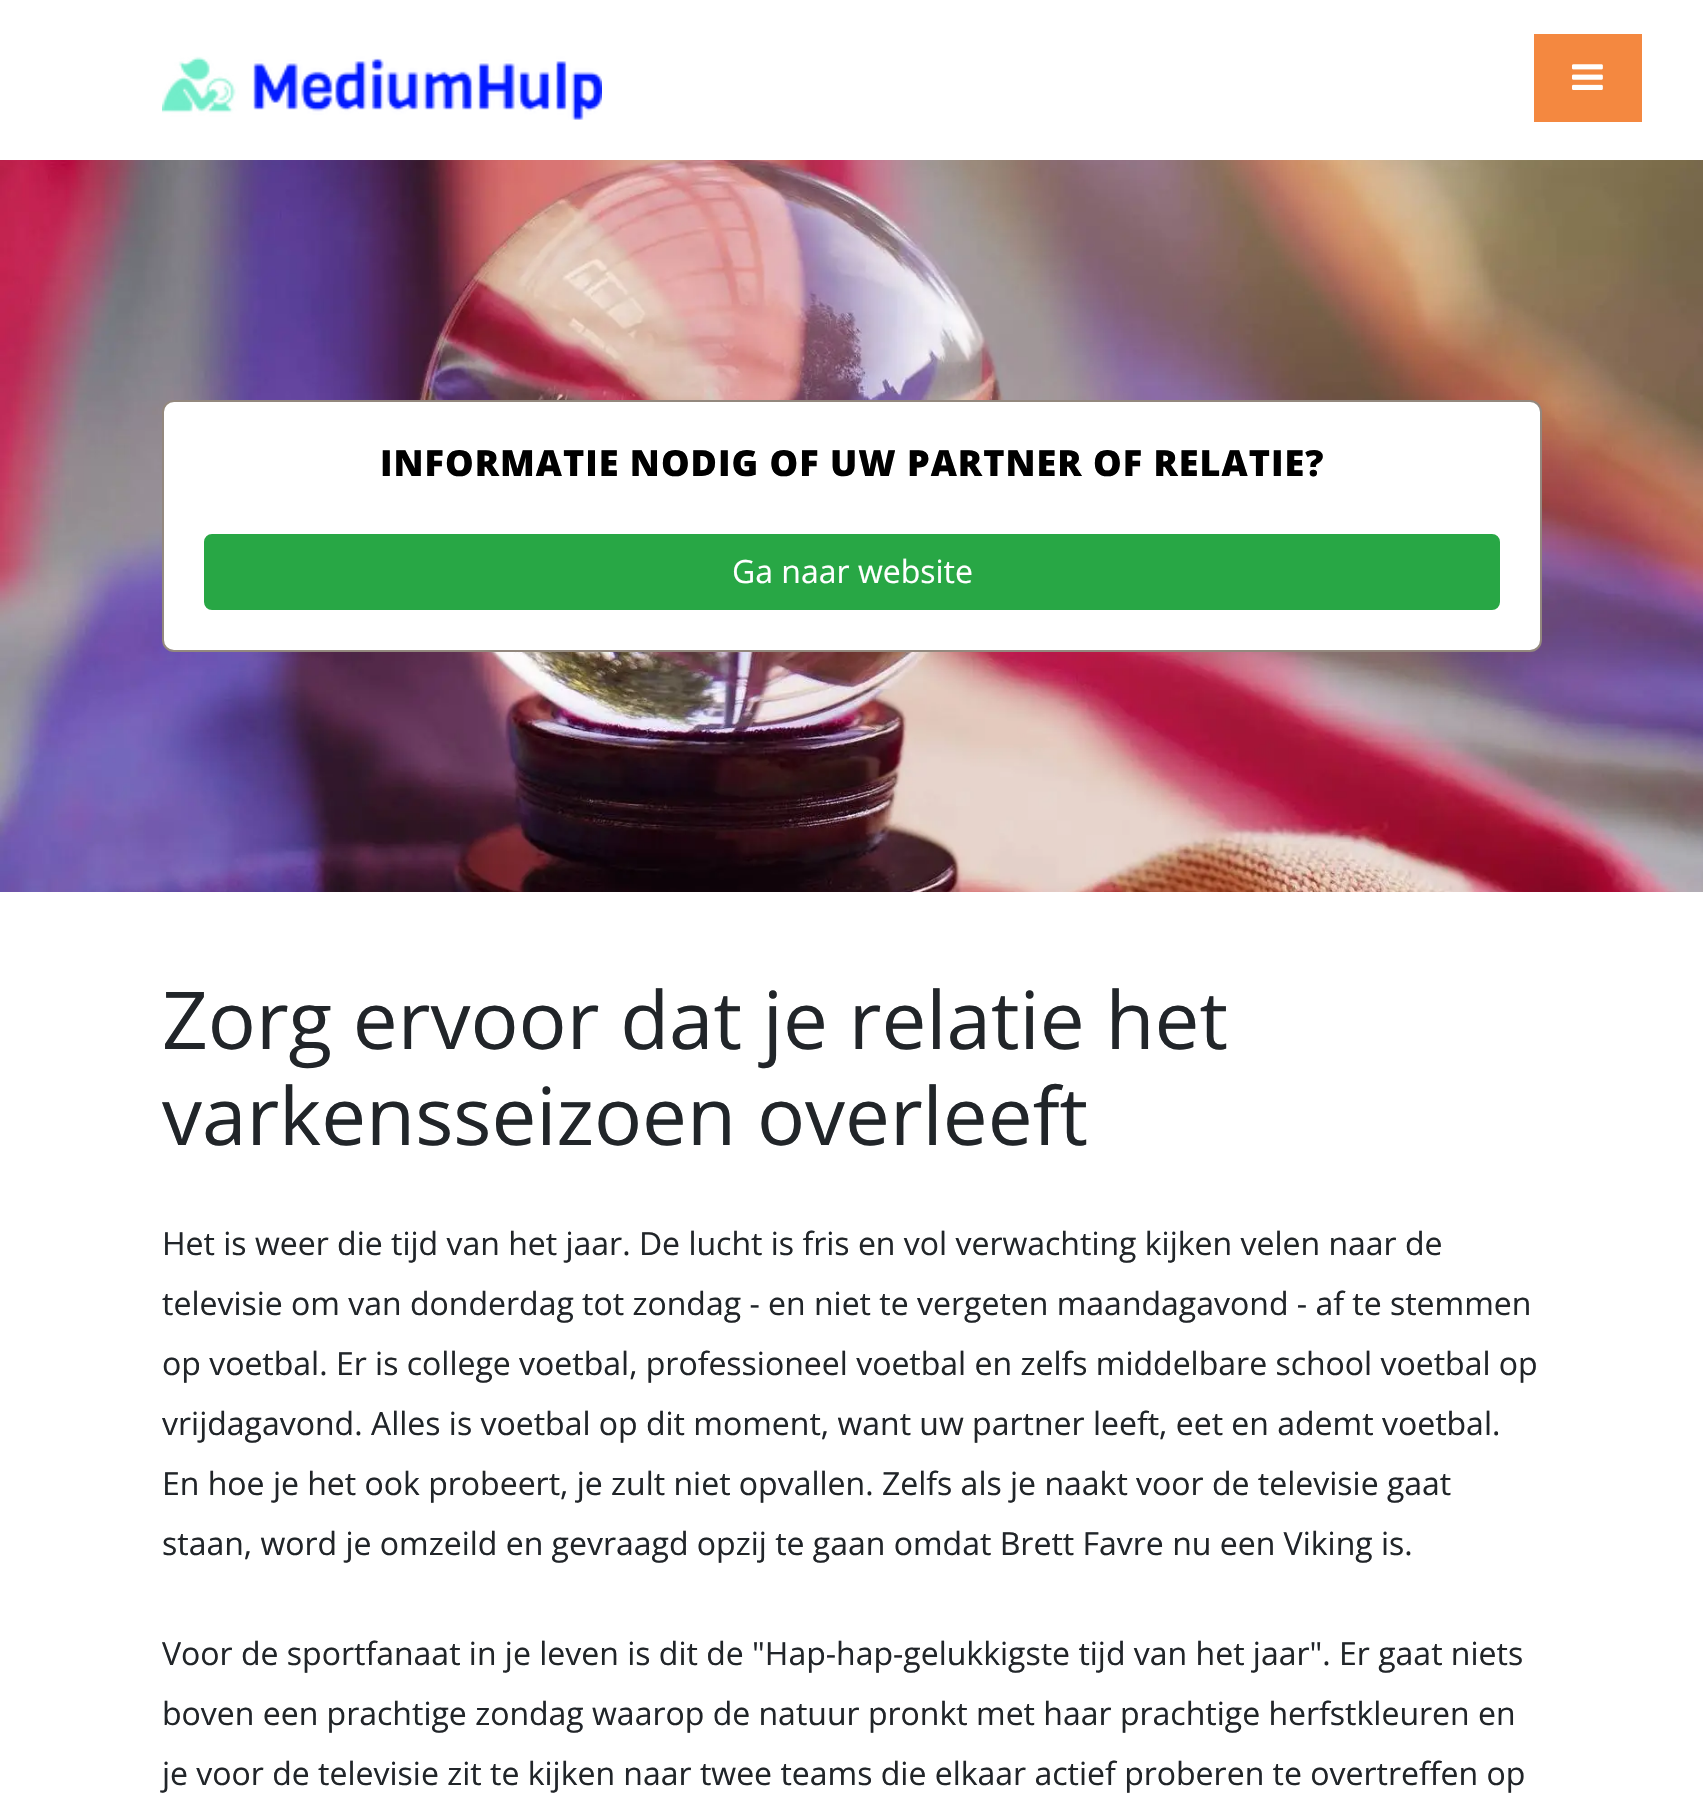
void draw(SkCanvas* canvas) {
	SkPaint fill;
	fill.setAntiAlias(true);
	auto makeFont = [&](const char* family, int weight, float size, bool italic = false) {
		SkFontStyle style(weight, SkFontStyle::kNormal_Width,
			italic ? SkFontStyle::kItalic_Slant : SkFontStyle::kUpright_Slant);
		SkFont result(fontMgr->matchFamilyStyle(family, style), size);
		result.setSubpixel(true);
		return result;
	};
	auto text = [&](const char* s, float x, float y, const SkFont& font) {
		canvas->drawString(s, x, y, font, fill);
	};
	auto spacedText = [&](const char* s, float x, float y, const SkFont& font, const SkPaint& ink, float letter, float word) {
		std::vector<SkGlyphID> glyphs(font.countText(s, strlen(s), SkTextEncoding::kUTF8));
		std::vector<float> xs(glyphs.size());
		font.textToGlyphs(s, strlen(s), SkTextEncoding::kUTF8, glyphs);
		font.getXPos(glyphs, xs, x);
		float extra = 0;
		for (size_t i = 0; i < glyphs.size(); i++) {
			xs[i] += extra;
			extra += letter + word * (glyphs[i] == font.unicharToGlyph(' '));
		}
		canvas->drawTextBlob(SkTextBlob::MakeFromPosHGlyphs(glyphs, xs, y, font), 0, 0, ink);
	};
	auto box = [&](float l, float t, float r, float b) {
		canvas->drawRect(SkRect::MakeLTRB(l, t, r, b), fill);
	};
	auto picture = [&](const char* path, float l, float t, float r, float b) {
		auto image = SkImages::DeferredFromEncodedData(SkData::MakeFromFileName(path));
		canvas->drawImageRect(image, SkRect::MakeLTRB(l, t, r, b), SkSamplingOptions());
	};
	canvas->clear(0xFFFFFFFF);
	picture("image0.png", 162, 56, 602, 120);
	fill.setColor(0xFFF48840);
	box(1534, 34, 1642, 122);
	picture("image1.png", 1572, 64, 1603, 90);
	picture("image2.png", 0, 160, 1703, 892);
	fill.setColor(0xFFFFFFFF);
	canvas->drawRoundRect(SkRect::MakeLTRB(163, 401, 1541, 651), 11, 11, fill);
	fill.setStyle(SkPaint::kStroke_Style);
	fill.setStrokeWidth(2);
	fill.setColor(0xFF93887E);
	canvas->drawRoundRect(SkRect::MakeLTRB(163, 401, 1541, 651), 11, 11, fill);
	fill.setStyle(SkPaint::kFill_Style);
	fill.setColor(0xFF28A745);
	canvas->drawRoundRect(SkRect::MakeLTRB(205, 535, 1499, 609), 7, 7, fill);
	fill.setStyle(SkPaint::kStroke_Style);
	canvas->drawRoundRect(SkRect::MakeLTRB(205, 535, 1499, 609), 7, 7, fill);
	auto font1 = makeFont("Open Sans", 800, 36);
	fill.setStyle(SkPaint::kFill_Style);
	fill.setColor(0xFF000000);
	spacedText("INFORMATIE NODIG OF UW PARTNER OF RELATIE?", 380, 476, font1, fill, 1, 0);
	auto font2 = makeFont("Open Sans", 400, 32);
	fill.setColor(0xFFFFFFFF);
	text("Ga naar website", 732, 583, font2);
	auto font3 = makeFont("Open Sans", 400, 80);
	fill.setColor(0xFF212529);
	text("Zorg ervoor dat je relatie het", 162, 1049, font3);
	text("varkensseizoen overleeft", 162, 1145, font3);
	text("Het is weer die tijd van het jaar. De lucht is fris en vol verwachting kijken velen naar de", 162, 1255, font2);
	text("televisie om van donderdag tot zondag - en niet te vergeten maandagavond - af te stemmen", 162, 1315, font2);
	text("op voetbal. Er is college voetbal, professioneel voetbal en zelfs middelbare school voetbal op", 162, 1375, font2);
	text("vrijdagavond. Alles is voetbal op dit moment, want uw partner leeft, eet en ademt voetbal.", 162, 1435, font2);
	text("En hoe je het ook probeert, je zult niet opvallen. Zelfs als je naakt voor de televisie gaat", 162, 1495, font2);
	text("staan, word je omzeild en gevraagd opzij te gaan omdat Brett Favre nu een Viking is.", 162, 1555, font2);
	text("Voor de sportfanaat in je leven is dit de \"Hap-hap-gelukkigste tijd van het jaar\". Er gaat niets", 162, 1665, font2);
	text("boven een prachtige zondag waarop de natuur pronkt met haar prachtige herfstkleuren en", 162, 1725, font2);
	text("je voor de televisie zit te kijken naar twee teams die elkaar actief proberen te overtreffen op", 162, 1785, font2);
}
